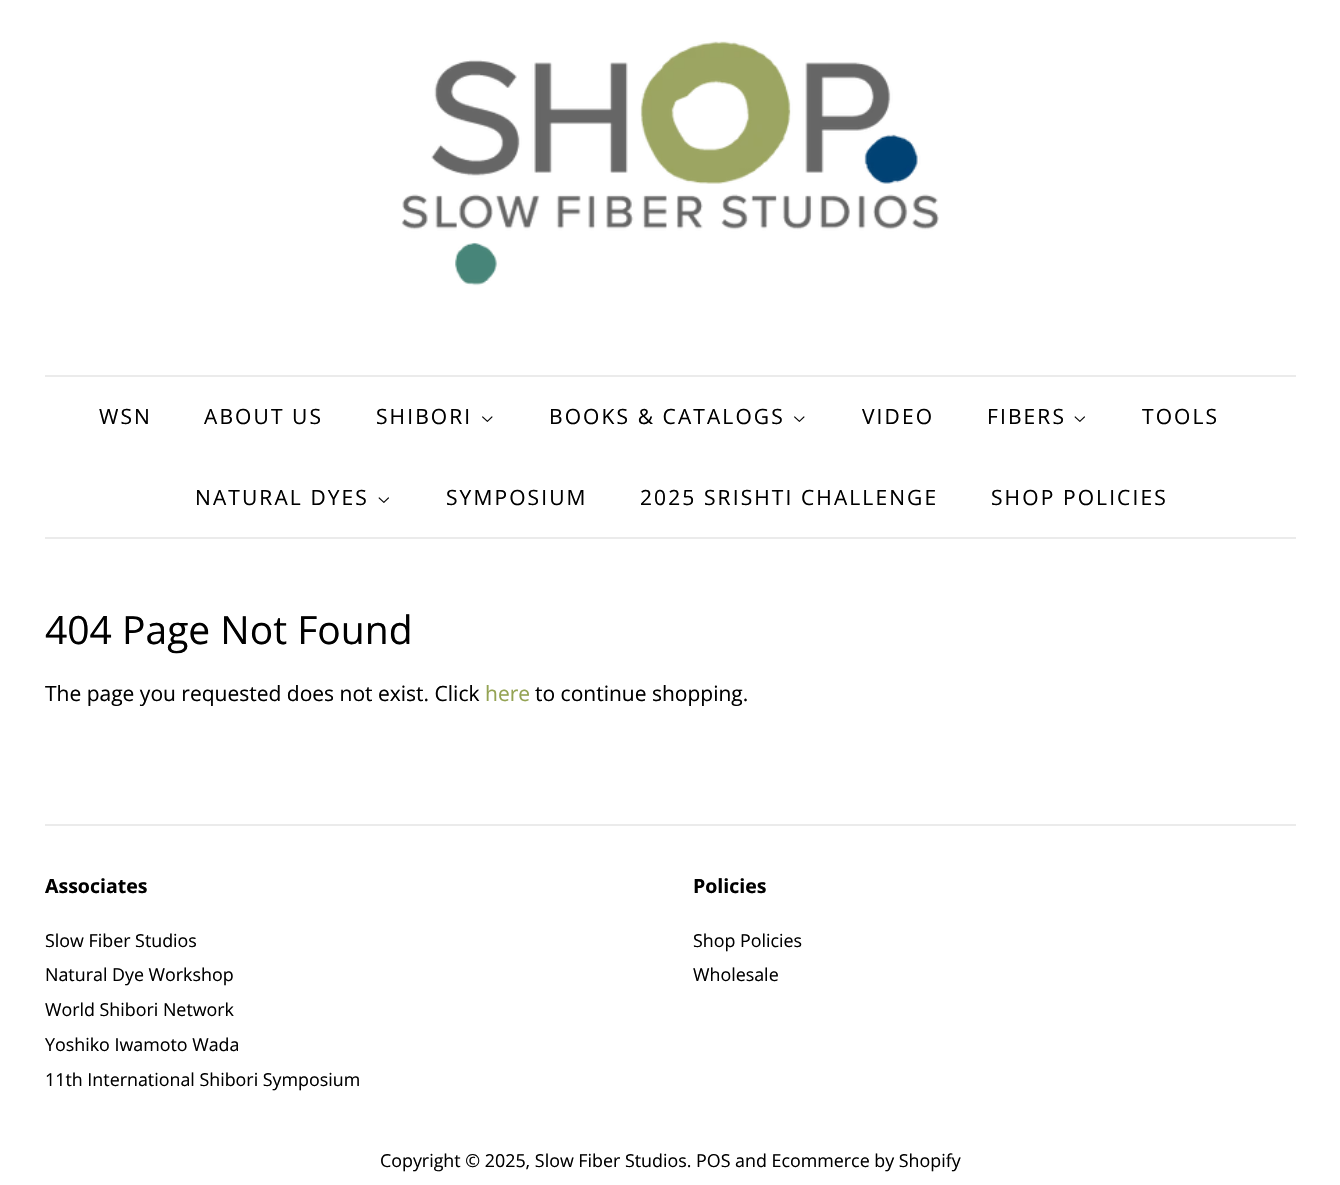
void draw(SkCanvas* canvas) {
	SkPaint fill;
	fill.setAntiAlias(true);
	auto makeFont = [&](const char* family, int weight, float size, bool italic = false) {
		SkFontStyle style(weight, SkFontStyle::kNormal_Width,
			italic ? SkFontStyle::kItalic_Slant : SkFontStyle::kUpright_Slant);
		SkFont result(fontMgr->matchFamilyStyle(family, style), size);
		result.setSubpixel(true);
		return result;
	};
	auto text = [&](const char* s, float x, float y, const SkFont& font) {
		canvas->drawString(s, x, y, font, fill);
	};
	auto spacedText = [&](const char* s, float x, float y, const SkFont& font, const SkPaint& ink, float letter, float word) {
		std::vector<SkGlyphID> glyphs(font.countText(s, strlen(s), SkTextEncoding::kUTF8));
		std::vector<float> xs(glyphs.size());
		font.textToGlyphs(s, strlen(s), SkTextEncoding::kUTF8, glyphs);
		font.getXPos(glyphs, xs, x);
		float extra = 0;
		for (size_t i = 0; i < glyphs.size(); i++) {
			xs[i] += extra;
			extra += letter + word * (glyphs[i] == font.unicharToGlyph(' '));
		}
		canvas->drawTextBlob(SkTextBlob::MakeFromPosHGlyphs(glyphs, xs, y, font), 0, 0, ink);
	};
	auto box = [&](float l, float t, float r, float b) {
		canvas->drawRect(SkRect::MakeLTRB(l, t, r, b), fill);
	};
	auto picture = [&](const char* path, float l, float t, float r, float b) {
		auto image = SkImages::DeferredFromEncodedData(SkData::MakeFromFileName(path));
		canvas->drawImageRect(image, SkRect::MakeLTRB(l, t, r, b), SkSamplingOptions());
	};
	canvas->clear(0xFFFFFFFF);
	picture("image0.png", 401, 41, 939, 286);
	fill.setColor(0xFFEBEBEB);
	box(45, 375, 1296, 377);
	box(45, 537, 1296, 539);
	picture("image1.png", 482, 416, 493, 422);
	picture("image1.png", 794, 416, 805, 422);
	picture("image2.png", 1074, 416, 1085, 422);
	picture("image2.png", 378, 497, 389, 503);
	box(45, 824, 1296, 826);
	auto font1 = makeFont("Open Sans", 400, 21);
	fill.setColor(0xFF000000);
	spacedText("WSN", 99, 424, font1, fill, 2.1f, 0);
	spacedText("ABOUT US", 204, 424, font1, fill, 2.1f, 0);
	spacedText("SHIBORI", 376, 424, font1, fill, 2.1f, 0);
	spacedText("BOOKS & CATALOGS", 549, 424, font1, fill, 2.1f, 0);
	spacedText("VIDEO", 862, 424, font1, fill, 2.1f, 0);
	spacedText("FIBERS", 987, 424, font1, fill, 2.1f, 0);
	spacedText("TOOLS", 1142, 424, font1, fill, 2.1f, 0);
	spacedText("NATURAL DYES", 195, 505, font1, fill, 2.1f, 0);
	spacedText("SYMPOSIUM", 446, 505, font1, fill, 2.1f, 0);
	spacedText("2025 SRISHTI CHALLENGE", 640, 505, font1, fill, 2.1f, 0);
	spacedText("SHOP POLICIES", 991, 505, font1, fill, 2.1f, 0);
	auto font2 = makeFont("Open Sans", 400, 39);
	text("404 Page Not Found", 45, 644, font2);
	text("The page you requested does not exist. Click", 45, 701, font1);
	fill.setColor(0xFF94A353);
	text("here", 485, 701, font1);
	fill.setColor(0xFF000000);
	text("to continue shopping.", 535, 701, font1);
	auto font3 = makeFont("Open Sans", 700, 19.5f);
	text("Associates", 45, 893, font3);
	auto font4 = makeFont("Open Sans", 400, 17.85f);
	text("Slow Fiber Studios", 45, 947, font4);
	text("Natural Dye Workshop", 45, 981, font4);
	text("World Shibori Network", 45, 1016, font4);
	text("Yoshiko Iwamoto Wada", 45, 1051, font4);
	text("11th International Shibori Symposium", 45, 1086, font4);
	text("Policies", 693, 893, font3);
	text("Shop Policies", 693, 947, font4);
	text("Wholesale", 693, 981, font4);
	text("Copyright © 2025, Slow Fiber Studios. POS and Ecommerce by Shopify", 380, 1167, font4);
}
